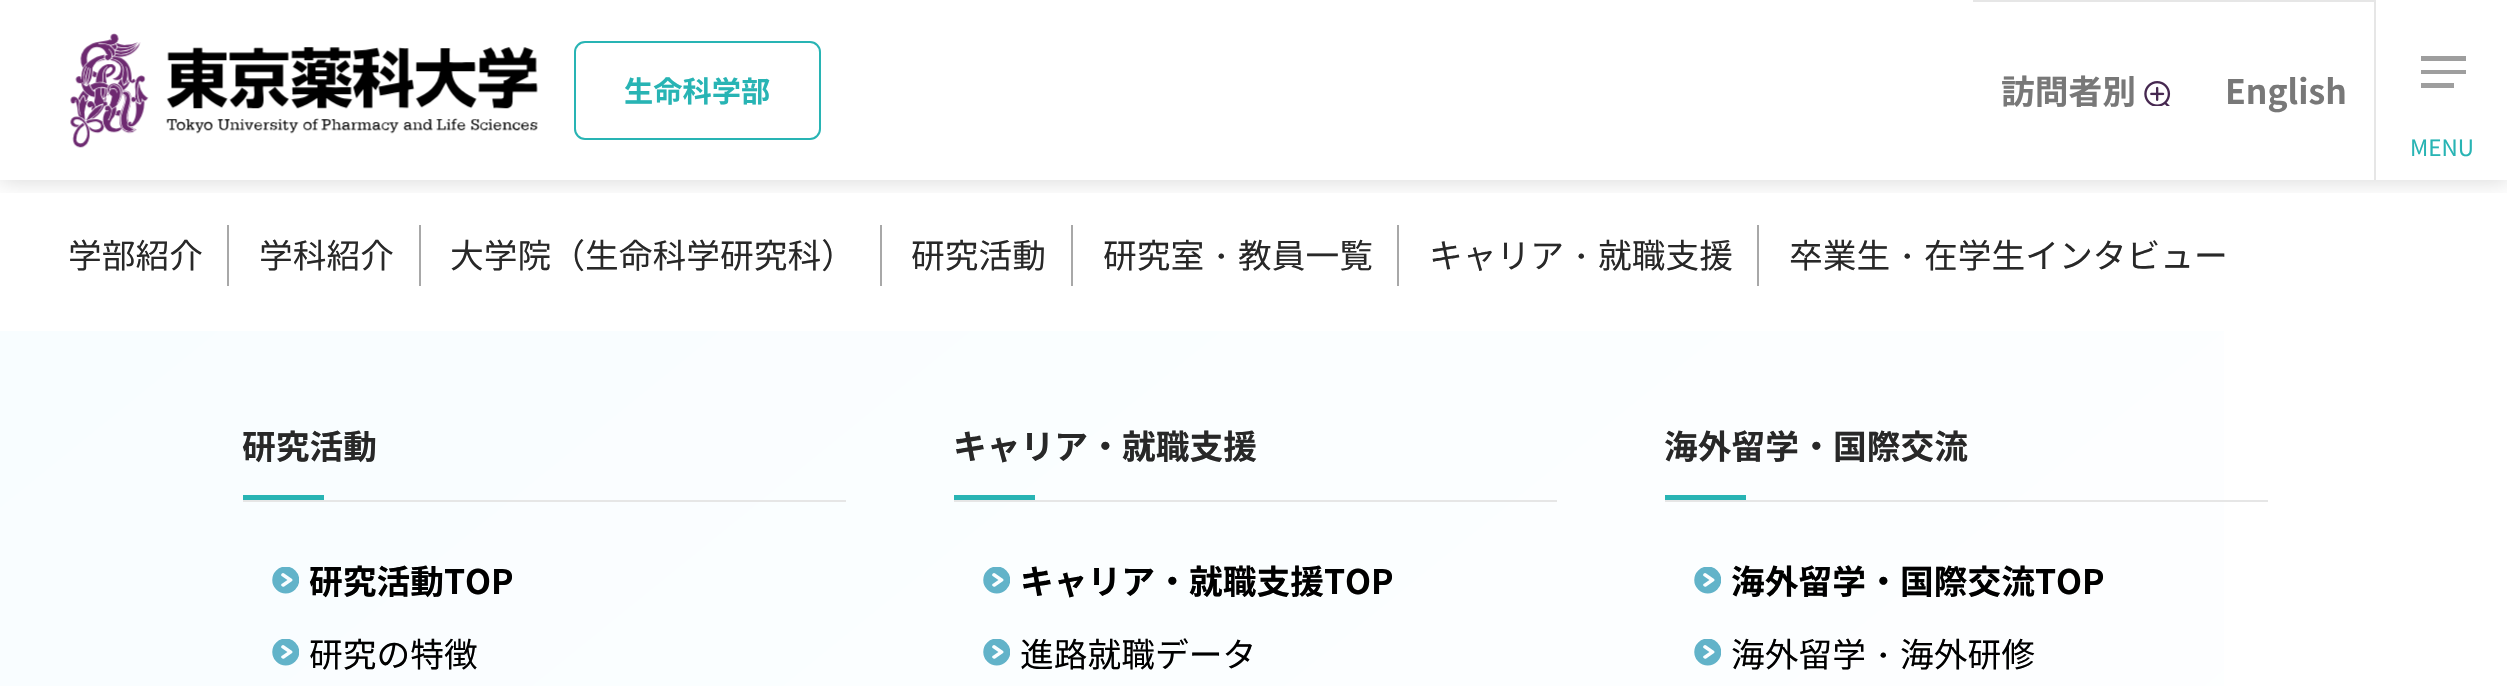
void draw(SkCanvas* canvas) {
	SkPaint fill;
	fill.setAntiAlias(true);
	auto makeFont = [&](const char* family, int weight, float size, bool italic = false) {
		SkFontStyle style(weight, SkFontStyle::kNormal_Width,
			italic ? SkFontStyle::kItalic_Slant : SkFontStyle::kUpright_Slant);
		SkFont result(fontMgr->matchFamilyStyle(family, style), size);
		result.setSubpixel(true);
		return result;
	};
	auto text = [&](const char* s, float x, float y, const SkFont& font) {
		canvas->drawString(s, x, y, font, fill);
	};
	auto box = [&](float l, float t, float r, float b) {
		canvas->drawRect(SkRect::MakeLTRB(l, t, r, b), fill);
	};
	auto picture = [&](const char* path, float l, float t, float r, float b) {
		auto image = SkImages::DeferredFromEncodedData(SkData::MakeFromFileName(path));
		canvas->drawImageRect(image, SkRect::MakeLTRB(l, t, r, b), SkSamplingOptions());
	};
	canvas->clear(0xFFFFFFFF);
	canvas->save();
	canvas->clipRect(SkRect::MakeLTRB(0, 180, 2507, 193));
	fill.setColor(0x29000000);
	fill.setMaskFilter(SkMaskFilter::MakeBlur(kNormal_SkBlurStyle, 11));
	canvas->drawRect(SkRect::MakeLTRB(0, 0, 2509, 180), fill);
	fill.setMaskFilter(nullptr);
	canvas->restore();
	picture("image0.png", 70, 33, 538, 148);
	fill.setStyle(SkPaint::kStroke_Style);
	fill.setStrokeWidth(2);
	fill.setColor(0xFF28B4B4);
	canvas->drawRoundRect(SkRect::MakeLTRB(575, 42, 820, 139), 10, 10, fill);
	picture("image1.png", 2144, 81, 2171, 106);
	fill.setStyle(SkPaint::kFill_Style);
	fill.setColor(0xFFE6E6E6);
	box(1973, 0, 2374, 2);
	box(2374, 0, 2376, 180);
	fill.setColor(0xFF9E9E9E);
	box(2421, 56, 2466, 61);
	box(2421, 70, 2466, 74);
	box(2421, 83, 2454, 88);
	fill.setColor(0xFFA8A8A8);
	box(227, 225, 229, 286);
	box(419, 225, 421, 286);
	box(880, 225, 882, 286);
	box(1071, 225, 1073, 286);
	box(1397, 225, 1399, 286);
	box(1757, 225, 1759, 286);
	{
		const SkColor colors[] = {0xFFF5FCFF, 0xFFFFFFFF};
		const float stops[] = {0, 1};
		const SkPoint ends[] = {{262, -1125}, {2247, 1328}};
		fill.setShader(SkGradientShader::MakeLinear(ends, colors, stops, 2, SkTileMode::kClamp));
		fill.setAlpha(255);
	}
	box(0, 331, 2224, 686);
	fill.setShader(nullptr);
	fill.setColor(0xFFE6E6E6);
	box(243, 500, 846, 502);
	fill.setColor(0xFF28B4B4);
	box(243, 495, 324, 500);
	picture("image2.png", 272, 567, 299, 594);
	picture("image3.png", 272, 639, 299, 666);
	fill.setColor(0xFFE6E6E6);
	box(954, 500, 1557, 502);
	fill.setColor(0xFF28B4B4);
	box(954, 495, 1035, 500);
	picture("image4.png", 983, 567, 1010, 594);
	picture("image5.png", 983, 639, 1010, 666);
	fill.setColor(0xFFE6E6E6);
	box(1665, 500, 2268, 502);
	fill.setColor(0xFF28B4B4);
	box(1665, 495, 1746, 500);
	picture("image6.png", 1694, 567, 1721, 594);
	picture("image7.png", 1694, 639, 1721, 666);
	auto font1 = makeFont("Noto Sans CJK JP", 700, 29.25f);
	text("生命科学部", 624, 102, font1);
	auto font2 = makeFont("Noto Sans CJK JP", 700, 33.75f);
	fill.setColor(0xFF787878);
	text("訪問者別", 2001, 104, font2);
	text("English", 2225, 104, font2);
	auto font3 = makeFont("Noto Sans CJK JP", 400, 22.5f);
	fill.setColor(0xFF28B4B4);
	text("MENU", 2410, 156, font3);
	auto font4 = makeFont("Noto Sans CJK JP", 400, 33.75f);
	fill.setColor(0xFF282828);
	text("学部紹介", 68, 268, font4);
	text("学科紹介", 259, 268, font4);
	text("大学院（生命科学研究科）", 450, 268, font4);
	text("研究活動", 911, 268, font4);
	text("研究室", 1103, 268, font4);
	auto font5 = makeFont("WenQuanYi Zen Hei", 500, 33.75f);
	text("・", 1204, 268, font5);
	text("教員一覧", 1238, 268, font4);
	text("キャリア", 1429, 268, font4);
	text("・", 1564, 268, font5);
	text("就職支援", 1598, 268, font4);
	text("卒業生", 1789, 268, font4);
	text("・", 1890, 268, font5);
	text("在学生インタビュー", 1924, 268, font4);
	text("研究活動", 242, 459, font2);
	fill.setColor(0xFF000000);
	text("研究活動TOP", 309, 594, font2);
	text("研究の特徴", 309, 667, font4);
	fill.setColor(0xFF282828);
	text("キャリア", 953, 459, font2);
	auto font6 = makeFont("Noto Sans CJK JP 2", 700, 33.75f);
	text("・", 1088, 459, font6);
	text("就職支援", 1122, 459, font2);
	fill.setColor(0xFF000000);
	text("キャリア", 1020, 594, font2);
	text("・", 1155, 594, font6);
	text("就職支援TOP", 1189, 594, font2);
	text("進路就職データ", 1020, 667, font4);
	fill.setColor(0xFF282828);
	text("海外留学", 1664, 459, font2);
	text("・", 1799, 459, font6);
	text("国際交流", 1833, 459, font2);
	fill.setColor(0xFF000000);
	text("海外留学", 1731, 594, font2);
	text("・", 1866, 594, font6);
	text("国際交流TOP", 1900, 594, font2);
	text("海外留学", 1731, 667, font4);
	text("・", 1866, 667, font5);
	text("海外研修", 1900, 667, font4);
}
